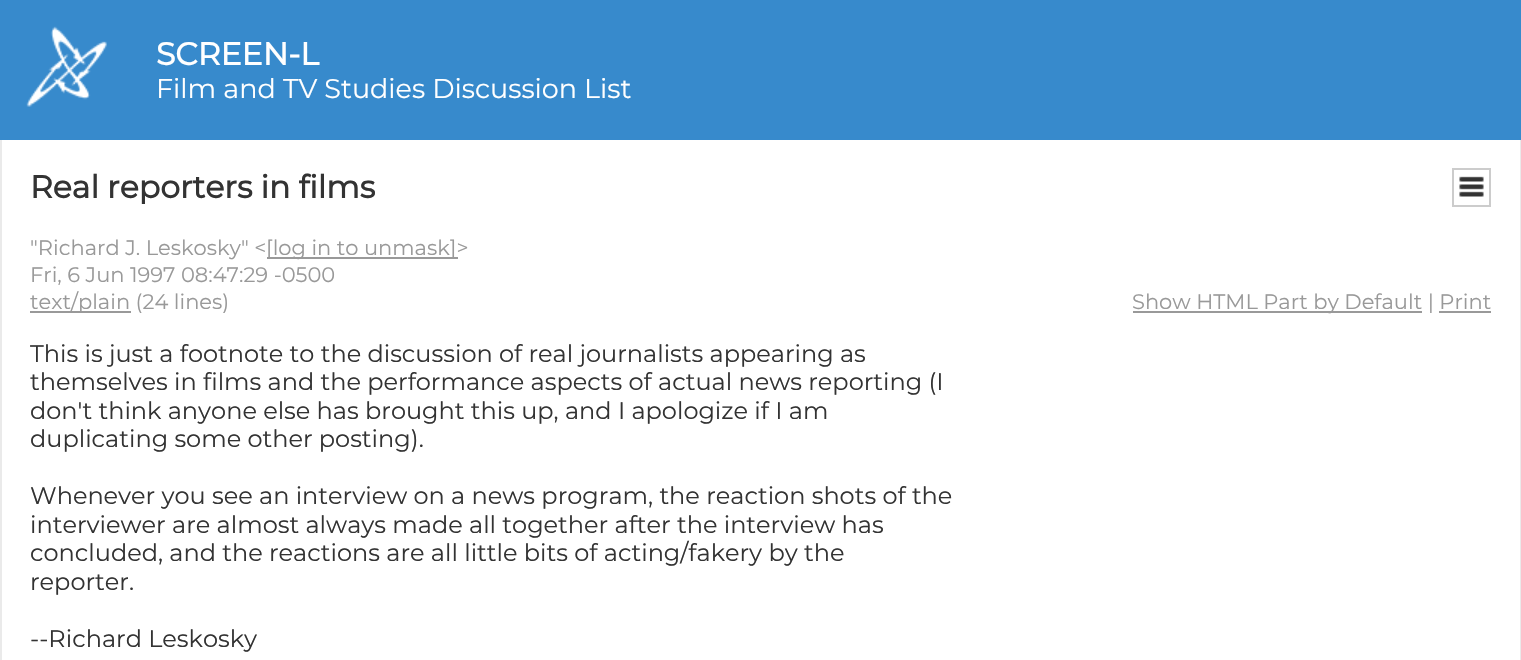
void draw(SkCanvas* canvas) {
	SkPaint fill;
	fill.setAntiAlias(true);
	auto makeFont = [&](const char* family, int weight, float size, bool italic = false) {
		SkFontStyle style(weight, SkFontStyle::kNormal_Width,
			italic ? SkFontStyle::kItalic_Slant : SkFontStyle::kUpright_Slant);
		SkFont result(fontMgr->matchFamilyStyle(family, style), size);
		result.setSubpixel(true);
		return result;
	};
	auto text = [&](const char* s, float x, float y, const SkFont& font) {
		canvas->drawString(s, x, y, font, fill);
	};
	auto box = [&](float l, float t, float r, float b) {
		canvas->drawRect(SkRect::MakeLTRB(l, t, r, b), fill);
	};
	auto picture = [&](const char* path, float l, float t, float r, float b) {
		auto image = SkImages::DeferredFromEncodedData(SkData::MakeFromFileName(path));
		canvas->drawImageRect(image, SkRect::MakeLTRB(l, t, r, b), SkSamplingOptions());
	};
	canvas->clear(0xFF378ACC);
	picture("image0.png", 26, 26, 107, 107);
	fill.setColor(0xFFFFFFFF);
	box(2, 140, 1520, 660);
	fill.setColor(0xFFEAEAEA);
	box(1520, 140, 1521, 660);
	box(0, 140, 2, 660);
	fill.setStyle(SkPaint::kStroke_Style);
	fill.setStrokeWidth(2);
	fill.setColor(0xFFCCCCCC);
	canvas->drawRect(SkRect::MakeLTRB(1453, 169, 1490, 206), fill);
	picture("image1.png", 1459, 176, 1484, 197);
	fill.setStyle(SkPaint::kFill_Style);
	fill.setColor(0xFF999999);
	box(267, 257, 458, 259);
	box(30, 311, 131, 313);
	box(1133, 311, 1422, 313);
	box(1439, 311, 1491, 313);
	auto font1 = makeFont("Montserrat", 700, 31.5f);
	fill.setColor(0xFFFFFFFF);
	text("SCREEN-L", 156, 65, font1);
	auto font2 = makeFont("Montserrat", 100, 27);
	text("Film and TV Studies Discussion List", 156, 98, font2);
	fill.setColor(0xFF333333);
	text("Real reporters in films", 30, 198, font1);
	auto font3 = makeFont("Montserrat", 100, 21);
	fill.setColor(0xFF999999);
	text("\"Richard J. Leskosky\" <", 30, 255, font3);
	text("[log in to unmask]>", 266, 255, font3);
	text("Fri, 6 Jun 1997 08:47:29 -0500", 30, 282, font3);
	text("text/plain (24 lines)", 30, 309, font3);
	text("Show HTML Part by Default | Print", 1132, 309, font3);
	auto font4 = makeFont("Montserrat", 100, 24);
	fill.setColor(0xFF333333);
	text("This is just a footnote to the discussion of real journalists appearing as", 30, 362, font4);
	text("themselves in films and the performance aspects of actual news reporting (I", 30, 390, font4);
	text("don't think anyone else has brought this up, and I apologize if I am", 30, 419, font4);
	text("duplicating some other posting).", 30, 447, font4);
	text("Whenever you see an interview on a news program, the reaction shots of the", 30, 504, font4);
	text("interviewer are almost always made all together after the interview has", 30, 533, font4);
	text("concluded, and the reactions are all little bits of acting/fakery by the", 30, 561, font4);
	text("reporter.", 30, 590, font4);
	text("--Richard Leskosky", 30, 647, font4);
}
